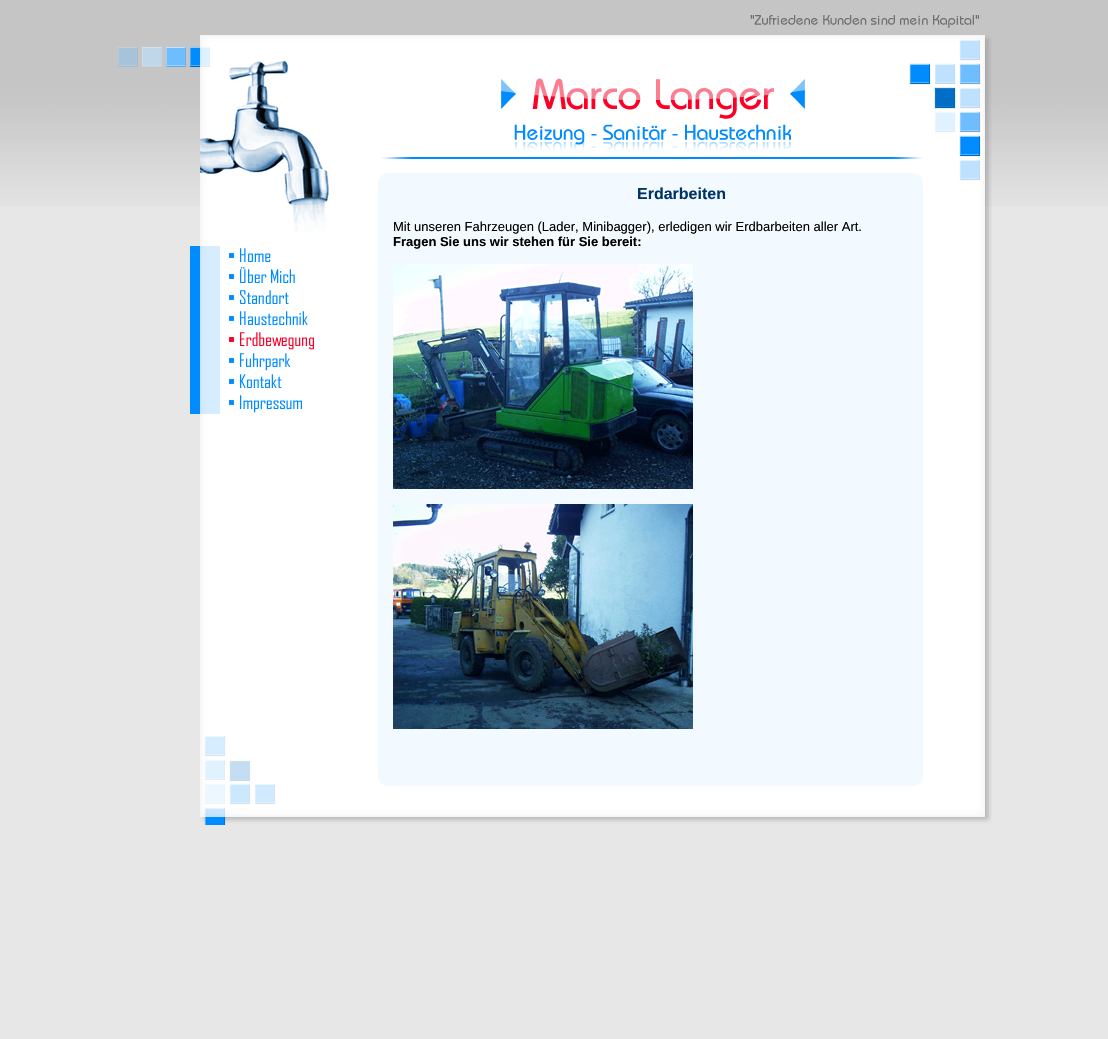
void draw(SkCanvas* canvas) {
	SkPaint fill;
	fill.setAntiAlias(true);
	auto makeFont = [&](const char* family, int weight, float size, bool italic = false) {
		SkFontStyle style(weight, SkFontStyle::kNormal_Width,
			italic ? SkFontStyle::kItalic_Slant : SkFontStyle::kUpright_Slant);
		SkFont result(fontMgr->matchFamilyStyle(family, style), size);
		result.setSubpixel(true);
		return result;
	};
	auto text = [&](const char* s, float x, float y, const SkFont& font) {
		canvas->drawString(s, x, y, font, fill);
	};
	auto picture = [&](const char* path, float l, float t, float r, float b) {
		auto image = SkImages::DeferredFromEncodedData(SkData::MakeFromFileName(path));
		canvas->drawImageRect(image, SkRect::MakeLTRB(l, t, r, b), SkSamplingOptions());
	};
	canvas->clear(0xFFE7E7E7);
	picture("image0.png", 0, 0, 1108, 207);
	picture("image1.png", 750, 15, 979, 28);
	picture("image2.png", 118, 35, 992, 182);
	picture("image3.png", 200, 182, 992, 732);
	picture("image4.png", 285, 182, 329, 233);
	picture("image5.png", 190, 246, 220, 414);
	picture("image6.png", 229, 248, 271, 262);
	picture("image7.png", 229, 267, 295, 283);
	picture("image8.png", 229, 290, 289, 304);
	picture("image9.png", 229, 311, 308, 325);
	picture("image10.png", 229, 332, 314, 350);
	picture("image11.png", 229, 353, 291, 371);
	picture("image12.png", 229, 374, 282, 388);
	picture("image13.png", 229, 395, 302, 413);
	picture("image14.png", 393, 264, 693, 489);
	picture("image15.png", 393, 504, 693, 729);
	picture("image16.png", 200, 732, 992, 825);
	auto font1 = makeFont("Liberation Sans", 700, 16);
	fill.setColor(0xFF003366);
	text("Erdarbeiten", 637, 199, font1);
	auto font2 = makeFont("Liberation Sans", 400, 13);
	fill.setColor(0xFF000000);
	text("Mit unseren Fahrzeugen (Lader, Minibagger), erledigen wir Erdbarbeiten aller Art.", 393, 231, font2);
	auto font3 = makeFont("Liberation Sans", 700, 13);
	text("Fragen Sie uns wir stehen für Sie bereit:", 393, 246, font3);
}
